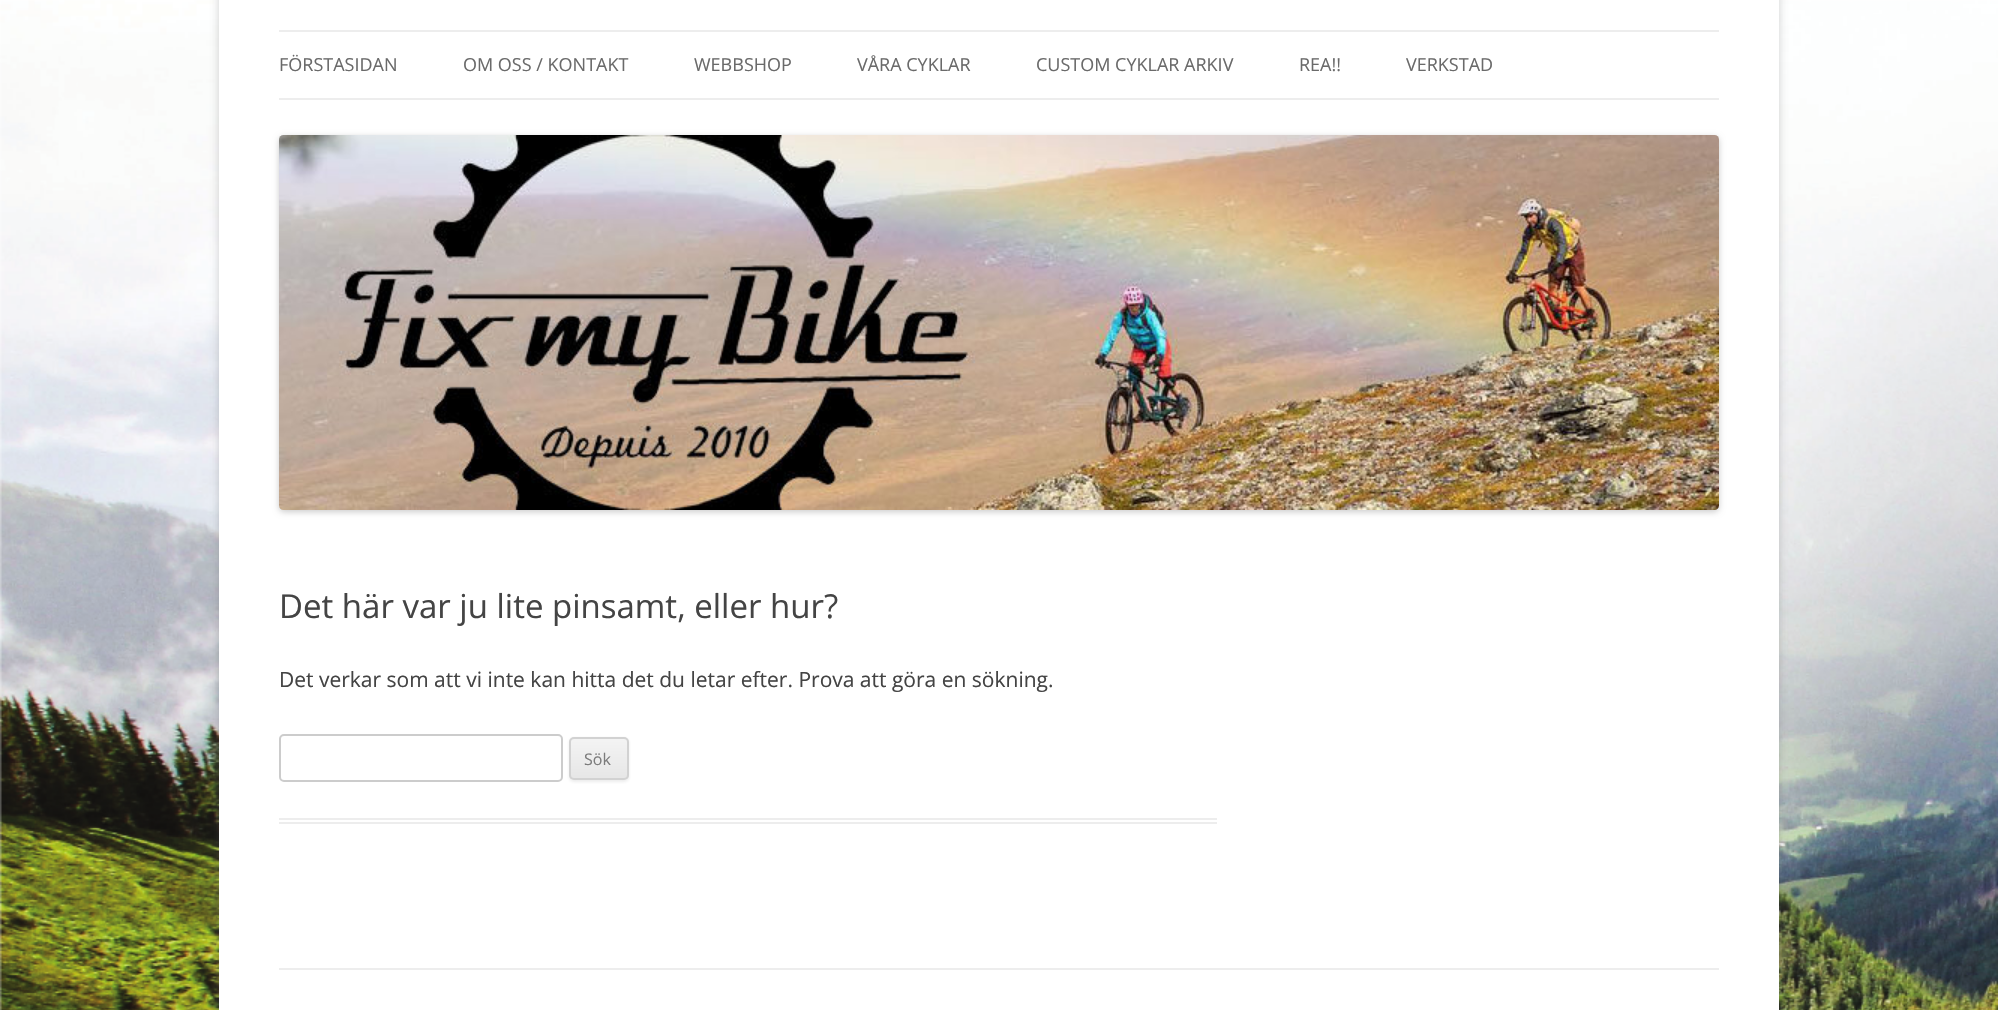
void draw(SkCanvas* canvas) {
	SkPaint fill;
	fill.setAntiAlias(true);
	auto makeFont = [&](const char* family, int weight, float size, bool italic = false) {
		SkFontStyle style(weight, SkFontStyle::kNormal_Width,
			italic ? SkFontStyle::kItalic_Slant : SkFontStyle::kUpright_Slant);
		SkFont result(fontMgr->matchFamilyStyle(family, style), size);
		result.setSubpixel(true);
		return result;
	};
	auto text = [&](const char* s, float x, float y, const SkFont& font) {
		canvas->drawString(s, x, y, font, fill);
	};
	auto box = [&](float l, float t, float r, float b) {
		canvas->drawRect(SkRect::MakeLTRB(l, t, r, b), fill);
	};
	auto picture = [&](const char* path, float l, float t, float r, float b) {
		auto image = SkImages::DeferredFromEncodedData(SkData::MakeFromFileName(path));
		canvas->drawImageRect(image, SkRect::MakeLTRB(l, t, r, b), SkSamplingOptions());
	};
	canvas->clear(0xFFFFFFFF);
	picture("image0.png", 0, 0, 1998, 1010);
	fill.setColor(0x4D646464);
	fill.setMaskFilter(SkMaskFilter::MakeBlur(kNormal_SkBlurStyle, 4.5f));
	canvas->drawRect(SkRect::MakeLTRB(219, -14, 1779, 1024), fill);
	fill.setMaskFilter(nullptr);
	fill.setColor(0xFFFFFFFF);
	box(219, 0, 1779, 1010);
	fill.setColor(0xFFEDEDED);
	box(279, 30, 1719, 32);
	box(279, 98, 1719, 100);
	fill.setColor(0x33000000);
	fill.setMaskFilter(SkMaskFilter::MakeBlur(kNormal_SkBlurStyle, 3));
	canvas->drawRoundRect(SkRect::MakeLTRB(279, 137, 1719, 512), 5, 5, fill);
	fill.setMaskFilter(nullptr);
	picture("image1.png", 279, 135, 1719, 510);
	fill.setColor(0xFFEDEDED);
	box(279, 818, 1217, 820);
	box(279, 822, 1217, 824);
	fill.setStyle(SkPaint::kStroke_Style);
	fill.setStrokeWidth(2);
	fill.setColor(0xFFCCCCCC);
	canvas->drawRoundRect(SkRect::MakeLTRB(280, 735, 562, 781), 4, 4, fill);
	fill.setStyle(SkPaint::kFill_Style);
	fill.setColor(0x1A404040);
	fill.setMaskFilter(SkMaskFilter::MakeBlur(kNormal_SkBlurStyle, 1.5f));
	canvas->drawRoundRect(SkRect::MakeLTRB(569, 738, 629, 782), 5, 5, fill);
	fill.setMaskFilter(nullptr);
	canvas->save();
	canvas->clipPath(SkPathBuilder().moveTo(574, 737).lineTo(624, 737).cubicTo(627, 737, 629, 739, 629, 742).lineTo(629, 775).cubicTo(629, 778, 627, 780, 624, 780).lineTo(574, 780).cubicTo(571, 780, 569, 778, 569, 775).lineTo(569, 742).cubicTo(569, 739, 571, 737, 574, 737).close().detach(), true);
	{
		const SkColor colors[] = {0xFFF4F4F4, 0xFFE6E6E6};
		const float stops[] = {0, 1};
		const SkPoint ends[] = {{599, 738}, {599, 779}};
		fill.setShader(SkGradientShader::MakeLinear(ends, colors, stops, 2, SkTileMode::kClamp));
		fill.setAlpha(255);
	}
	box(569, 738, 629, 779);
	canvas->restore();
	fill.setStyle(SkPaint::kStroke_Style);
	fill.setShader(nullptr);
	fill.setColor(0xFFD2D2D2);
	canvas->drawRoundRect(SkRect::MakeLTRB(570, 738, 628, 779), 4, 4, fill);
	fill.setStyle(SkPaint::kFill_Style);
	fill.setColor(0xFFEDEDED);
	box(279, 968, 1719, 970);
	auto font1 = makeFont("Open Sans", 400, 18);
	fill.setColor(0xFF6A6A6A);
	text("FÖRSTASIDAN", 279, 71, font1);
	text("OM OSS / KONTAKT", 463, 71, font1);
	text("WEBBSHOP", 694, 71, font1);
	text("VÅRA CYKLAR", 857, 71, font1);
	text("CUSTOM CYKLAR ARKIV", 1036, 71, font1);
	text("REA!!", 1299, 71, font1);
	text("VERKSTAD", 1406, 71, font1);
	auto font2 = makeFont("Open Sans", 400, 33);
	fill.setColor(0xFF444444);
	text("Det här var ju lite pinsamt, eller hur?", 279, 618, font2);
	auto font3 = makeFont("Open Sans", 400, 21);
	text("Det verkar som att vi inte kan hitta det du letar efter. Prova att göra en sökning.", 279, 687, font3);
	auto font4 = makeFont("Open Sans", 400, 16);
	fill.setColor(0xFF7C7C7C);
	text("Sök", 584, 765, font4);
}
